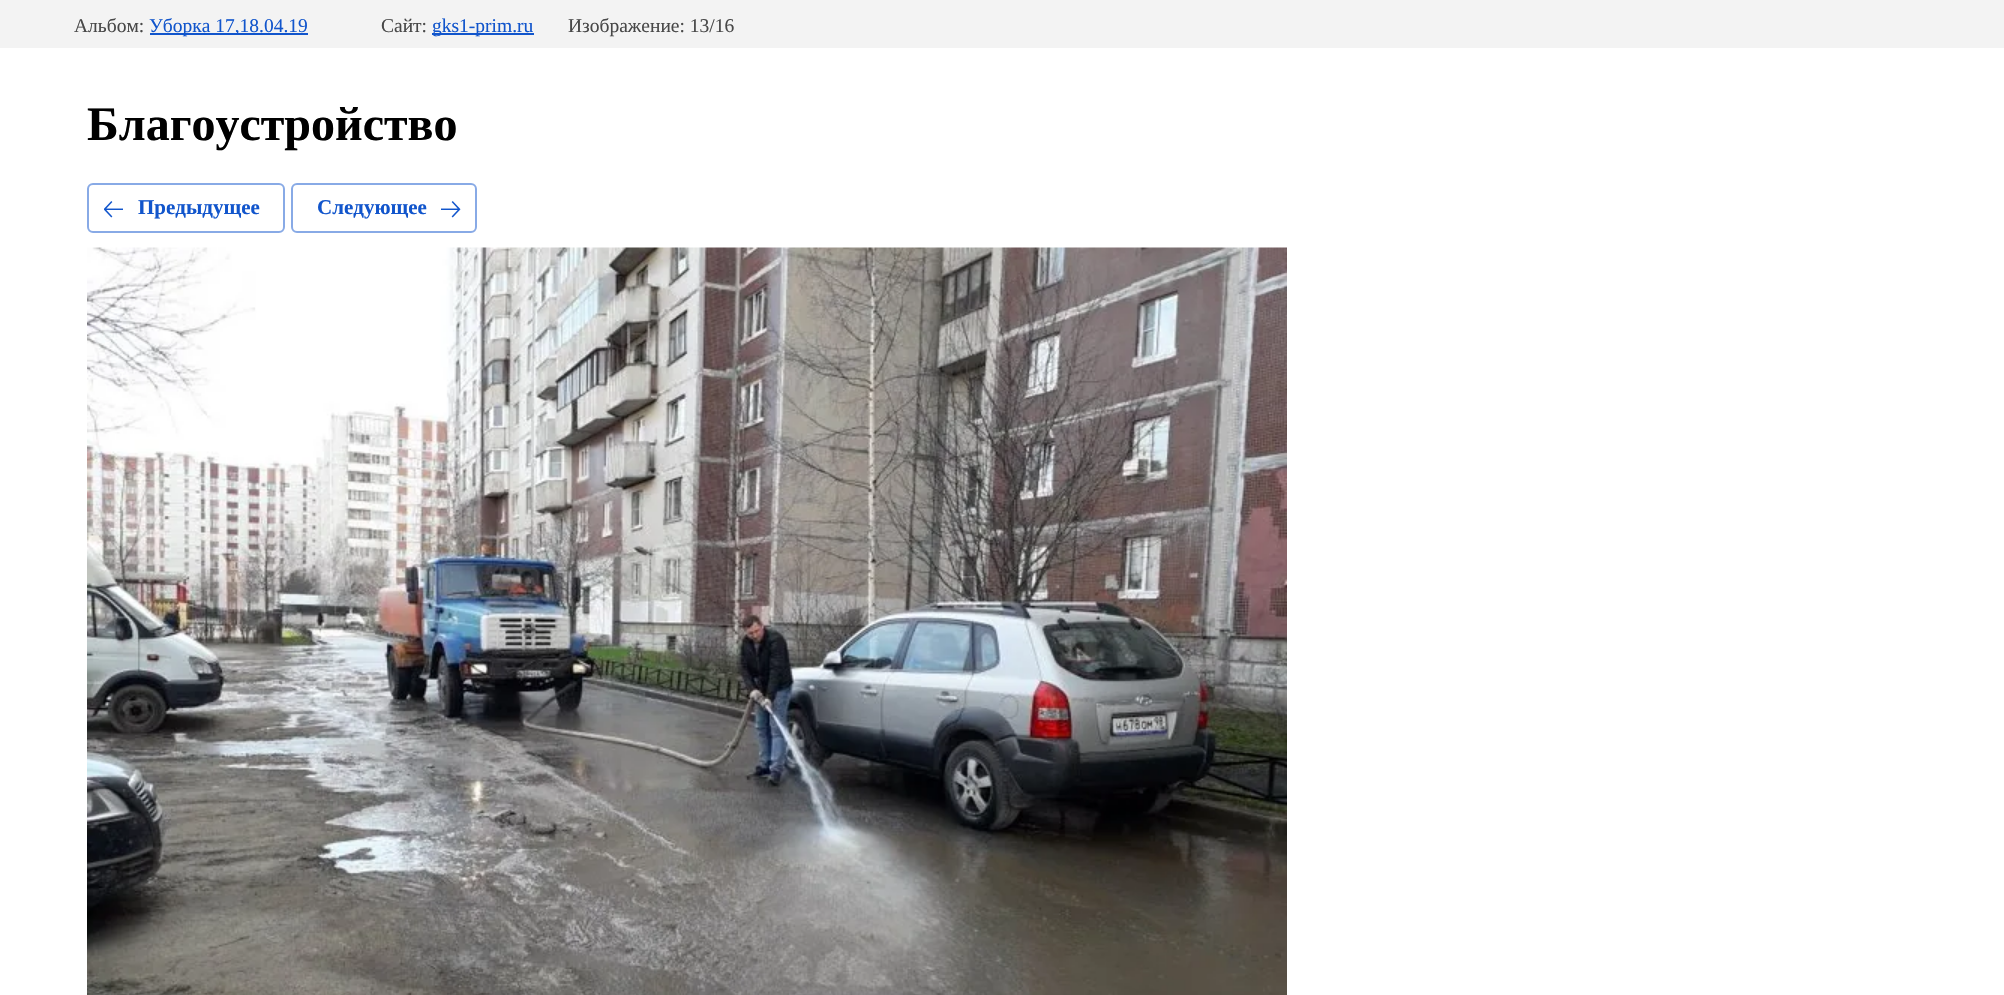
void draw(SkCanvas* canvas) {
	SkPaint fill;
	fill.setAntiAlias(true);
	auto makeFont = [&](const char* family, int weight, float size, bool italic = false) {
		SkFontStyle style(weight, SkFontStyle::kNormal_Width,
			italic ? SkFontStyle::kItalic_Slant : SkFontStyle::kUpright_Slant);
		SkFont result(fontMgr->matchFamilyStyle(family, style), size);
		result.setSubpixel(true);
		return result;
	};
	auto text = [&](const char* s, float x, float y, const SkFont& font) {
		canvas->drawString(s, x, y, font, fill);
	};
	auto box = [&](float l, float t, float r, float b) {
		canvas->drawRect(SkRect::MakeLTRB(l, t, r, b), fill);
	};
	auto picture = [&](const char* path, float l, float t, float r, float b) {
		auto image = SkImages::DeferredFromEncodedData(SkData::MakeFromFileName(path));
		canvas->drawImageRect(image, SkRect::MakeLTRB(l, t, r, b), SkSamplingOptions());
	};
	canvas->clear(0xFFFFFFFF);
	fill.setColor(0xFFF3F3F3);
	box(0, 0, 2004, 48);
	fill.setColor(0xFF1155CC);
	box(150, 33, 308, 35);
	box(432, 33, 534, 35);
	fill.setStyle(SkPaint::kStroke_Style);
	fill.setStrokeWidth(2);
	fill.setColor(0xFF88AAE6);
	canvas->drawRoundRect(SkRect::MakeLTRB(88, 184, 284, 232), 5, 5, fill);
	picture("image0.png", 104, 201, 123, 218);
	canvas->drawRoundRect(SkRect::MakeLTRB(292, 184, 476, 232), 5, 5, fill);
	picture("image1.png", 441, 201, 461, 218);
	picture("image2.png", 87, 247, 1287, 995);
	auto font1 = makeFont("Liberation Serif", 400, 19.5f);
	fill.setStyle(SkPaint::kFill_Style);
	fill.setColor(0xFF484848);
	text("Альбом:", 74, 32, font1);
	fill.setColor(0xFF1155CC);
	text("Уборка 17,18.04.19", 149, 32, font1);
	fill.setColor(0xFF484848);
	text("Сайт:", 381, 32, font1);
	fill.setColor(0xFF1155CC);
	text("gks1-prim.ru", 432, 32, font1);
	fill.setColor(0xFF484848);
	text("Изображение: 13/16", 568, 32, font1);
	auto font2 = makeFont("Liberation Serif", 700, 48);
	fill.setColor(0xFF000000);
	text("Благоустройство", 87, 140, font2);
	auto font3 = makeFont("Liberation Serif", 700, 21);
	fill.setColor(0xFF1155CC);
	text("Предыдущее", 138, 214, font3);
	text("Следующее", 317, 214, font3);
}
